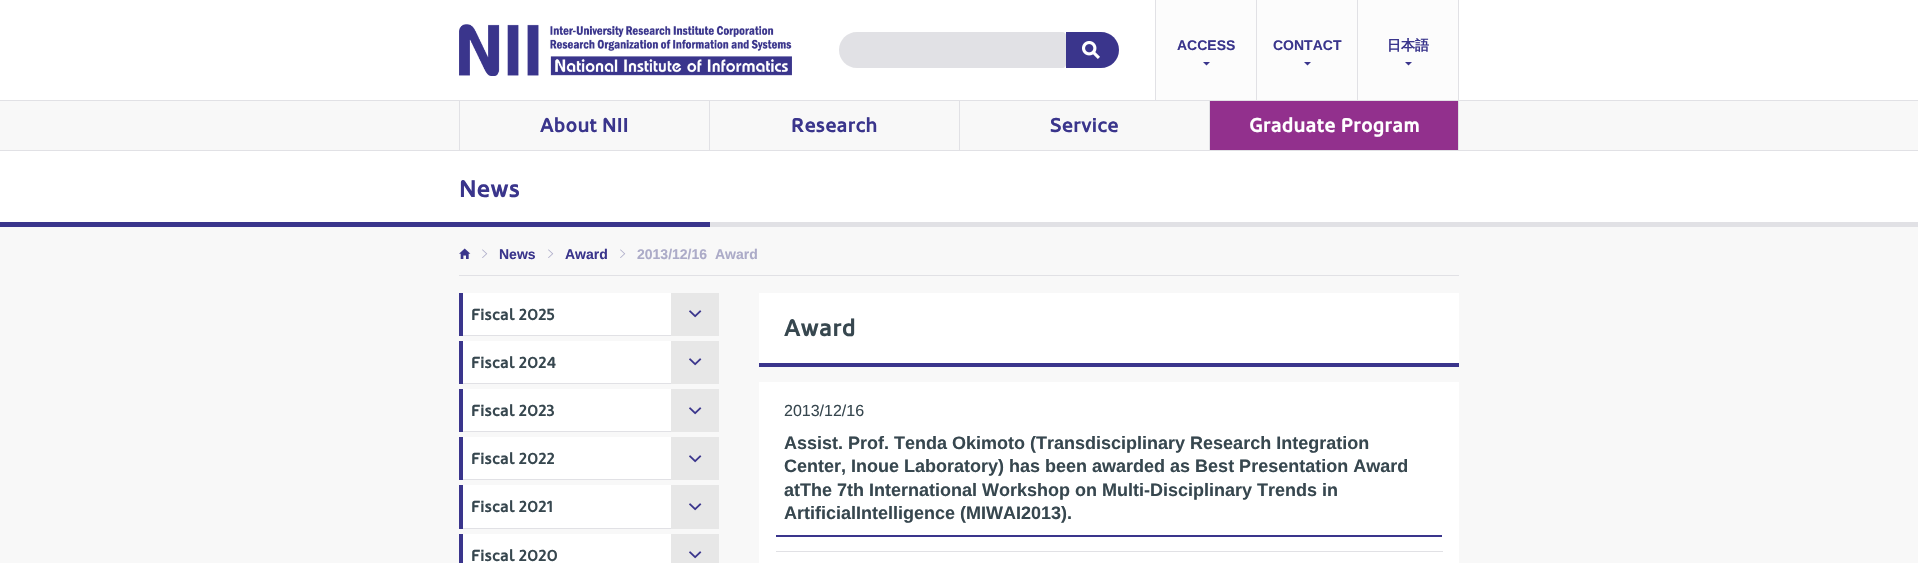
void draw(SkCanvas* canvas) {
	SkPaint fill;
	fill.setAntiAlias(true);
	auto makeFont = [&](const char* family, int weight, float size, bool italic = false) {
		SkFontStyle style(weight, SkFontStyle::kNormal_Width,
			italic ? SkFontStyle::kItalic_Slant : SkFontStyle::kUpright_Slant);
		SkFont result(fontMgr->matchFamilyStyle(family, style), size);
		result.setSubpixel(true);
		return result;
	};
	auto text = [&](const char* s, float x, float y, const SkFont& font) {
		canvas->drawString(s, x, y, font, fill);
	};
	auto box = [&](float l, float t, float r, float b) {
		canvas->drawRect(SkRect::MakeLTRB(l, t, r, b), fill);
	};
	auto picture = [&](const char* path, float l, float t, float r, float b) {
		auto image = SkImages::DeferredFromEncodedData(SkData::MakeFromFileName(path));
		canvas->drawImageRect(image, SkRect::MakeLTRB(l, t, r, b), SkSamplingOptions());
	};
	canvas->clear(0xFFFFFFFF);
	picture("image0.png", 459, 24, 792, 76);
	fill.setColor(0xFFE1E1E5);
	canvas->drawPath(SkPathBuilder().moveTo(857, 32).lineTo(1063, 32).cubicTo(1064.5f, 32, 1066, 33.5f, 1066, 35).lineTo(1066, 65).cubicTo(1066, 66.5f, 1064.5f, 68, 1063, 68).lineTo(857, 68).cubicTo(847, 68, 839, 60, 839, 50).cubicTo(839, 40, 847, 32, 857, 32).close().detach(), fill);
	fill.setColor(0xFF3A358C);
	canvas->drawPath(SkPathBuilder().moveTo(1066, 32).lineTo(1101, 32).cubicTo(1111, 32, 1119, 40, 1119, 50).cubicTo(1119, 60, 1111, 68, 1101, 68).lineTo(1066, 68).close().detach(), fill);
	picture("image1.png", 1082, 41, 1100, 59);
	fill.setColor(0xFFFCFCFC);
	box(1156, 0, 1458, 100);
	fill.setColor(0xFFE1E1E5);
	box(1155, 0, 1156, 100);
	fill.setColor(0xFF3A358C);
	canvas->drawPath(SkPathBuilder().moveTo(1203, 62).lineTo(1210, 62).lineTo(1206.5f, 65.5f).close().detach(), fill);
	fill.setColor(0xFFE1E1E5);
	box(1256, 0, 1257, 100);
	fill.setColor(0xFF3A358C);
	canvas->drawPath(SkPathBuilder().moveTo(1304, 62).lineTo(1311, 62).lineTo(1307.5f, 65.5f).close().detach(), fill);
	fill.setColor(0xFFE1E1E5);
	box(1458, 0, 1459, 100);
	box(1357, 0, 1358, 100);
	fill.setColor(0xFF3A358C);
	canvas->drawPath(SkPathBuilder().moveTo(1405, 62).lineTo(1412, 62).lineTo(1408.5f, 65.5f).close().detach(), fill);
	fill.setColor(0xFFF8F8F8);
	box(0, 101, 1918, 150);
	fill.setColor(0xFFE1E1E5);
	box(0, 100, 1918, 101);
	box(0, 150, 1918, 151);
	box(459, 101, 460, 150);
	box(709, 101, 710, 150);
	box(959, 101, 960, 150);
	fill.setColor(0xFF92308D);
	box(1210, 101, 1458, 150);
	fill.setColor(0xFFE1E1E5);
	box(1458, 101, 1459, 150);
	box(1209, 101, 1210, 150);
	fill.setColor(0xFF3A358C);
	box(0, 222, 710, 227);
	fill.setColor(0xFFE1E1E5);
	box(710, 222, 1918, 227);
	fill.setColor(0xFFF8F8F8);
	box(0, 227, 1918, 563);
	fill.setColor(0xFFE1E1E5);
	box(459, 275, 1459, 276);
	picture("image2.png", 459, 248, 471, 259);
	picture("image3.png", 482, 249, 488, 258);
	picture("image3.png", 548, 249, 554, 258);
	picture("image3.png", 620, 249, 626, 258);
	fill.setColor(0xFFFFFFFF);
	box(463, 293, 671, 335);
	fill.setColor(0xFFE1E1E5);
	box(459, 335, 671, 336);
	fill.setColor(0xFF3A358C);
	box(459, 293, 463, 336);
	fill.setColor(0xFFE7E7E7);
	box(671, 293, 719, 336);
	picture("image4.png", 689, 310, 702, 318);
	fill.setColor(0xFFFFFFFF);
	box(463, 341, 671, 383);
	fill.setColor(0xFFE1E1E5);
	box(459, 383, 671, 384);
	fill.setColor(0xFF3A358C);
	box(459, 341, 463, 384);
	fill.setColor(0xFFE7E7E7);
	box(671, 341, 719, 384);
	picture("image4.png", 689, 358, 702, 366);
	fill.setColor(0xFFFFFFFF);
	box(463, 389, 671, 431);
	fill.setColor(0xFFE1E1E5);
	box(459, 431, 671, 432);
	fill.setColor(0xFF3A358C);
	box(459, 389, 463, 432);
	fill.setColor(0xFFE7E7E7);
	box(671, 389, 719, 432);
	picture("image4.png", 689, 407, 702, 415);
	fill.setColor(0xFFFFFFFF);
	box(463, 437, 671, 479);
	fill.setColor(0xFFE1E1E5);
	box(459, 479, 671, 480);
	fill.setColor(0xFF3A358C);
	box(459, 437, 463, 480);
	fill.setColor(0xFFE7E7E7);
	box(671, 437, 719, 480);
	picture("image4.png", 689, 455, 702, 463);
	fill.setColor(0xFFFFFFFF);
	box(463, 485, 671, 528);
	fill.setColor(0xFFE1E1E5);
	box(459, 528, 671, 529);
	fill.setColor(0xFF3A358C);
	box(459, 485, 463, 529);
	fill.setColor(0xFFE7E7E7);
	box(671, 485, 719, 529);
	picture("image4.png", 689, 503, 702, 511);
	fill.setColor(0xFFFFFFFF);
	box(463, 534, 671, 563);
	fill.setColor(0xFF3A358C);
	box(459, 534, 463, 563);
	fill.setColor(0xFFE7E7E7);
	box(671, 534, 719, 563);
	picture("image4.png", 689, 551, 702, 559);
	fill.setColor(0xFFFFFFFF);
	box(759, 293, 1459, 363);
	fill.setColor(0xFF3A358C);
	box(759, 363, 1459, 367);
	fill.setColor(0xFFFFFFFF);
	box(759, 382, 1459, 563);
	fill.setColor(0xFF3A358C);
	box(776, 535, 1442, 537);
	fill.setColor(0xFFE1E1E5);
	box(776, 551, 1443, 552);
	auto font1 = makeFont("Liberation Sans", 700, 14);
	fill.setColor(0xFF3A358C);
	text("ACCESS", 1177, 50, font1);
	text("CONTACT", 1273, 50, font1);
	auto font2 = makeFont("WenQuanYi Zen Hei", 700, 14);
	text("日本語", 1387, 50, font2);
	auto font3 = makeFont("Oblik", 700, 20);
	text("About NII", 540, 132, font3);
	text("Research", 791, 132, font3);
	text("Service", 1050, 132, font3);
	fill.setColor(0xFFFFFFFF);
	text("Graduate Program", 1249, 132, font3);
	auto font4 = makeFont("Oblik", 700, 24);
	fill.setColor(0xFF3A358C);
	text("News", 459, 197, font4);
	text("News", 499, 259, font1);
	text("Award", 565, 259, font1);
	fill.setColor(0xFFACABC8);
	text("2013/12/16", 637, 259, font1);
	text("Award", 715, 259, font1);
	auto font5 = makeFont("Oblik", 700, 16);
	fill.setColor(0xFF37474F);
	text("Fiscal 2025", 471, 320, font5);
	text("Fiscal 2024", 471, 368, font5);
	text("Fiscal 2023", 471, 416, font5);
	text("Fiscal 2022", 471, 464, font5);
	text("Fiscal 2021", 471, 512, font5);
	text("Fiscal 2020", 471, 561, font5);
	text("Award", 784, 336, font4);
	auto font6 = makeFont("Liberation Sans", 400, 16);
	text("2013/12/16", 784, 416, font6);
	auto font7 = makeFont("Liberation Sans", 700, 18);
	text("Assist. Prof. Tenda Okimoto (Transdisciplinary Research Integration", 784, 449, font7);
	text("Center, Inoue Laboratory) has been awarded as Best Presentation Award", 784, 472, font7);
	text("atThe 7th International Workshop on Multi-Disciplinary Trends in", 784, 496, font7);
	text("ArtificialIntelligence (MIWAI2013).", 784, 519, font7);
}
